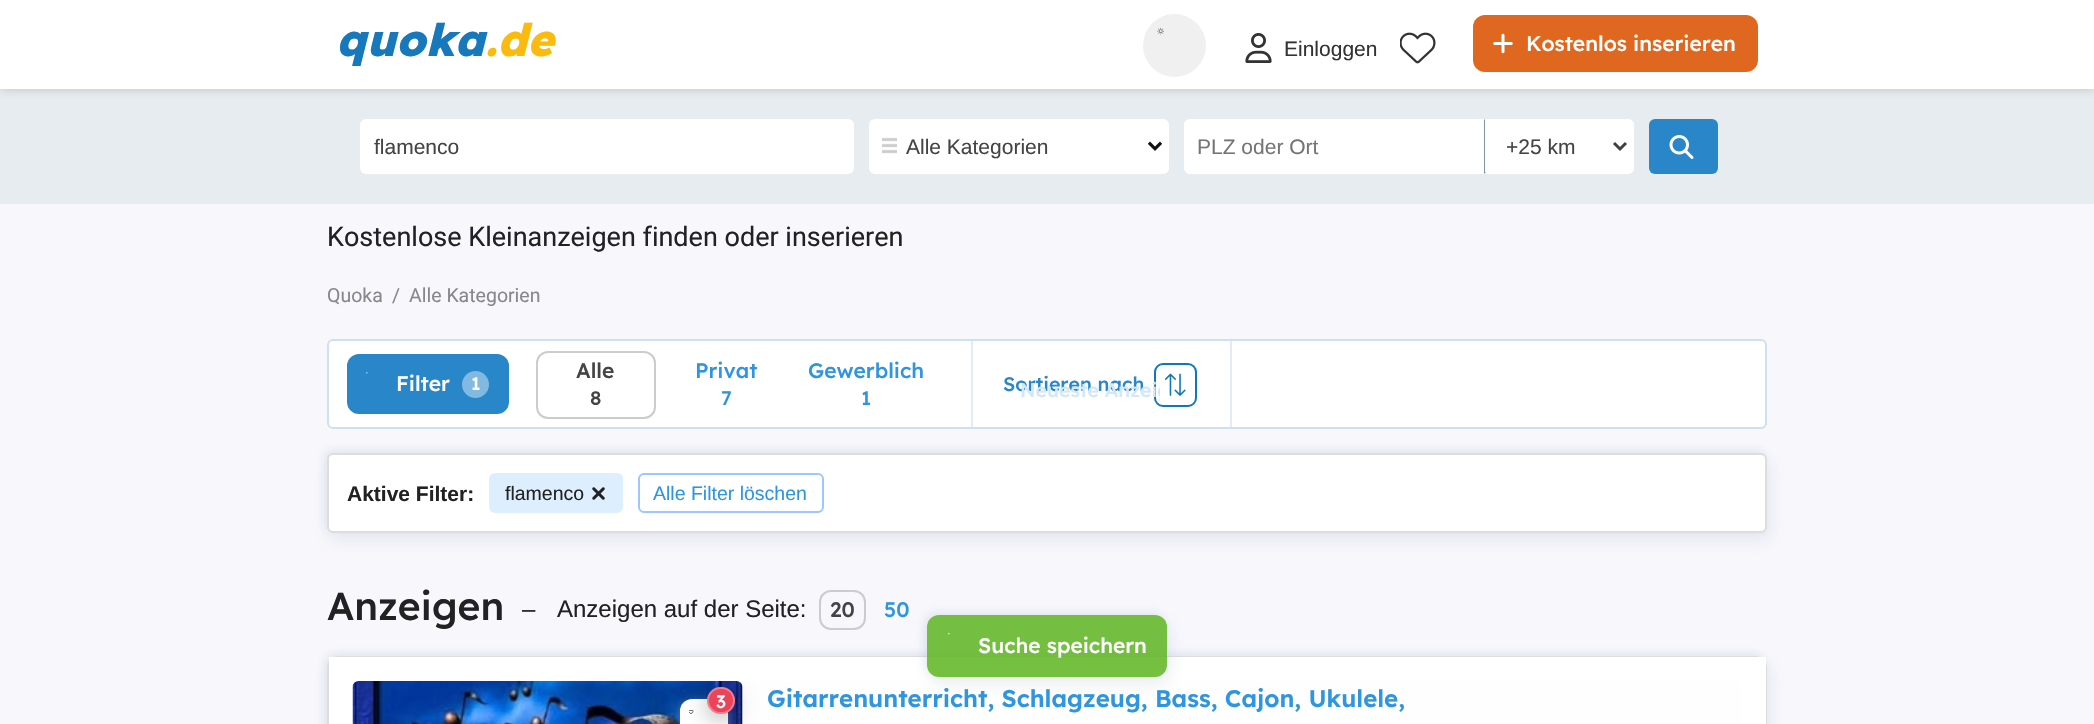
void draw(SkCanvas* canvas) {
	SkPaint fill;
	fill.setAntiAlias(true);
	auto makeFont = [&](const char* family, int weight, float size, bool italic = false) {
		SkFontStyle style(weight, SkFontStyle::kNormal_Width,
			italic ? SkFontStyle::kItalic_Slant : SkFontStyle::kUpright_Slant);
		SkFont result(fontMgr->matchFamilyStyle(family, style), size);
		result.setSubpixel(true);
		return result;
	};
	auto text = [&](const char* s, float x, float y, const SkFont& font) {
		canvas->drawString(s, x, y, font, fill);
	};
	auto box = [&](float l, float t, float r, float b) {
		canvas->drawRect(SkRect::MakeLTRB(l, t, r, b), fill);
	};
	auto roundBox = [&](float l, float t, float r, float b, float radius) {
		canvas->drawRoundRect(SkRect::MakeLTRB(l, t, r, b), radius, radius, fill);
	};
	auto picture = [&](const char* path, float l, float t, float r, float b) {
		auto image = SkImages::DeferredFromEncodedData(SkData::MakeFromFileName(path));
		canvas->drawImageRect(image, SkRect::MakeLTRB(l, t, r, b), SkSamplingOptions());
	};
	canvas->clear(0xFFF7F7FC);
	fill.setColor(0xFFE6ECF0);
	box(0, 89, 2094, 204);
	fill.setColor(0x2E202124);
	fill.setMaskFilter(SkMaskFilter::MakeBlur(kNormal_SkBlurStyle, 4.5f));
	canvas->drawRect(SkRect::MakeLTRB(0, -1, 2094, 90), fill);
	fill.setMaskFilter(nullptr);
	fill.setColor(0xFFFFFFFF);
	box(0, 0, 2094, 89);
	fill.setColor(0xFFF0F0F0);
	canvas->drawCircle(1174.5f, 45.5f, 31.5f, fill);
	picture("image0.png", 1157, 27, 1164, 35);
	picture("image1.png", 1245, 33, 1272, 63);
	picture("image2.png", 1400, 32, 1436, 64);
	fill.setColor(0xFFE06720);
	roundBox(1473, 15, 1758, 72, 12);
	picture("image3.png", 1493, 33, 1513, 54);
	fill.setColor(0xFFFFFFFF);
	roundBox(360, 119, 854, 174, 6);
	roundBox(869, 119, 1169, 174, 6);
	picture("image4.png", 882, 137, 1162, 154);
	fill.setStyle(SkPaint::kStroke_Style);
	fill.setStrokeWidth(3);
	fill.setColor(0xBF000000);
	canvas->drawPath(SkPathBuilder().moveTo(1149, 143).lineTo(1155, 149).lineTo(1161, 143).detach(), fill);
	fill.setStyle(SkPaint::kFill_Style);
	fill.setColor(0xFFFFFFFF);
	canvas->drawPath(SkPathBuilder().moveTo(1190, 119).lineTo(1484, 119).lineTo(1484, 174).lineTo(1190, 174).cubicTo(1186.5f, 174, 1184, 171.5f, 1184, 168).lineTo(1184, 125).cubicTo(1184, 121.5f, 1186.5f, 119, 1190, 119).close().detach(), fill);
	canvas->drawPath(SkPathBuilder().moveTo(1484, 119).lineTo(1628, 119).cubicTo(1631.5f, 119, 1634, 121.5f, 1634, 125).lineTo(1634, 168).cubicTo(1634, 171.5f, 1631.5f, 174, 1628, 174).lineTo(1484, 174).close().detach(), fill);
	fill.setColor(0xFF7B97A2);
	canvas->drawPath(SkPathBuilder().moveTo(1485, 120).lineTo(1485, 172).lineTo(1486, 172).lineTo(1484, 174).lineTo(1484, 119).close().detach(), fill);
	fill.setStyle(SkPaint::kStroke_Style);
	fill.setColor(0xFF404040);
	canvas->drawPath(SkPathBuilder().moveTo(1614, 143).lineTo(1620, 149).lineTo(1626, 143).detach(), fill);
	fill.setStyle(SkPaint::kFill_Style);
	fill.setColor(0xFF2986C8);
	roundBox(1649, 119, 1718, 174, 6);
	picture("image5.png", 1669, 135, 1694, 159);
	fill.setColor(0xFFFFFFFF);
	canvas->drawRoundRect(SkRect::MakeLTRB(328, 340, 1766, 428), 5, 5, fill);
	fill.setStyle(SkPaint::kStroke_Style);
	fill.setStrokeWidth(2);
	fill.setColor(0xFFD0E0EF);
	canvas->drawRoundRect(SkRect::MakeLTRB(328, 340, 1766, 428), 5, 5, fill);
	fill.setStyle(SkPaint::kFill_Style);
	fill.setColor(0xFF2986C8);
	canvas->drawRoundRect(SkRect::MakeLTRB(348, 355, 508, 413), 11, 11, fill);
	fill.setStyle(SkPaint::kStroke_Style);
	canvas->drawRoundRect(SkRect::MakeLTRB(348, 355, 508, 413), 11, 11, fill);
	picture("image6.png", 366, 372, 368, 374);
	fill.setStyle(SkPaint::kFill_Style);
	fill.setColor(0xFF81B9E2);
	canvas->drawCircle(475.5f, 384.5f, 13.5f, fill);
	fill.setStyle(SkPaint::kStroke_Style);
	fill.setColor(0xFFCCCCCC);
	canvas->drawRoundRect(SkRect::MakeLTRB(537, 352, 655, 418), 11, 11, fill);
	fill.setStyle(SkPaint::kFill_Style);
	fill.setColor(0x99D0E0EF);
	box(971, 341, 973, 428);
	fill.setStyle(SkPaint::kStroke_Style);
	fill.setColor(0xFF1177BB);
	canvas->drawRoundRect(SkRect::MakeLTRB(1155, 364, 1196, 406), 8, 8, fill);
	picture("image7.png", 1164, 373, 1186, 396);
	fill.setStyle(SkPaint::kFill_Style);
	fill.setColor(0x99D0E0EF);
	box(1230, 341, 1232, 428);
	fill.setColor(0x339AA8C0);
	fill.setMaskFilter(SkMaskFilter::MakeBlur(kNormal_SkBlurStyle, 8));
	canvas->drawRoundRect(SkRect::MakeLTRB(330, 461, 1770, 540), 6, 6, fill);
	fill.setMaskFilter(nullptr);
	fill.setMaskFilter(SkMaskFilter::MakeBlur(kNormal_SkBlurStyle, 4.5f));
	canvas->drawRoundRect(SkRect::MakeLTRB(324, 450, 1764, 530), 6, 6, fill);
	fill.setMaskFilter(nullptr);
	fill.setColor(0xFFFFFFFF);
	canvas->drawRoundRect(SkRect::MakeLTRB(328, 454, 1766, 532), 5, 5, fill);
	fill.setStyle(SkPaint::kStroke_Style);
	fill.setColor(0xFFDDDDDD);
	canvas->drawRoundRect(SkRect::MakeLTRB(328, 454, 1766, 532), 5, 5, fill);
	fill.setStyle(SkPaint::kFill_Style);
	fill.setColor(0xFFDDEFFF);
	canvas->drawRoundRect(SkRect::MakeLTRB(490, 474, 622, 512), 5, 5, fill);
	fill.setStyle(SkPaint::kStroke_Style);
	canvas->drawRoundRect(SkRect::MakeLTRB(490, 474, 622, 512), 5, 5, fill);
	picture("image8.png", 592, 487, 605, 500);
	fill.setColor(0xFF9CC7FF);
	canvas->drawRoundRect(SkRect::MakeLTRB(639, 474, 823, 512), 5, 5, fill);
	fill.setColor(0xFFCCCCCC);
	canvas->drawRoundRect(SkRect::MakeLTRB(820, 591, 865, 629), 11, 11, fill);
	fill.setStyle(SkPaint::kFill_Style);
	fill.setColor(0x339AA8C0);
	fill.setMaskFilter(SkMaskFilter::MakeBlur(kNormal_SkBlurStyle, 8));
	canvas->drawRoundRect(SkRect::MakeLTRB(330, 663, 1770, 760), 12, 12, fill);
	fill.setMaskFilter(nullptr);
	fill.setMaskFilter(SkMaskFilter::MakeBlur(kNormal_SkBlurStyle, 4.5f));
	canvas->drawRoundRect(SkRect::MakeLTRB(324, 653, 1764, 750), 12, 12, fill);
	fill.setMaskFilter(nullptr);
	fill.setColor(0xFFFEFEFE);
	canvas->drawRoundRect(SkRect::MakeLTRB(328, 657, 1766, 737), 11, 11, fill);
	fill.setStyle(SkPaint::kStroke_Style);
	fill.setColor(0xFFDDDDDD);
	canvas->drawRoundRect(SkRect::MakeLTRB(328, 657, 1766, 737), 11, 11, fill);
	fill.setStrokeWidth(24);
	fill.setColor(0xFFFFFFFF);
	canvas->drawRect(SkRect::MakeLTRB(341, 669, 1754, 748), fill);
	picture("image9.png", 352, 681, 743, 724);
	fill.setStyle(SkPaint::kFill_Style);
	fill.setColor(0x80AAAAAA);
	fill.setMaskFilter(SkMaskFilter::MakeBlur(kNormal_SkBlurStyle, 4));
	canvas->drawRoundRect(SkRect::MakeLTRB(680, 701, 728, 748), 12, 12, fill);
	fill.setMaskFilter(nullptr);
	fill.setColor(0xFFFFFFFF);
	roundBox(680, 699, 728, 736, 12);
	picture("image10.png", 689, 710, 694, 714);
	canvas->save();
	canvas->clipRect(SkRect::MakeLTRB(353, 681, 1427, 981));
	fill.setColor(0x4F000000);
	fill.setMaskFilter(SkMaskFilter::MakeBlur(kNormal_SkBlurStyle, 11));
	canvas->drawRoundRect(SkRect::MakeLTRB(707, 692, 735, 719), 13.5f, 13.5f, fill);
	fill.setMaskFilter(nullptr);
	canvas->restore();
	fill.setColor(0xFFEB445A);
	roundBox(707, 687, 735, 714, 13.5f);
	fill.setStyle(SkPaint::kStroke_Style);
	fill.setStrokeWidth(2);
	fill.setColor(0x4FFFFFFF);
	canvas->drawRoundRect(SkRect::MakeLTRB(708, 688, 734, 713), 12.5f, 12.5f, fill);
	canvas->save();
	canvas->clipPath(SkPathBuilder(SkPathFillType::kEvenOdd).moveTo(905, 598).lineTo(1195, 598).lineTo(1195, 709).lineTo(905, 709).close().moveTo(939, 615).lineTo(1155, 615).cubicTo(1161.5f, 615, 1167, 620.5f, 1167, 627).lineTo(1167, 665).cubicTo(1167, 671.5f, 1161.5f, 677, 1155, 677).lineTo(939, 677).cubicTo(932.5f, 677, 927, 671.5f, 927, 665).lineTo(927, 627).cubicTo(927, 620.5f, 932.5f, 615, 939, 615).close().detach(), true);
	fill.setStyle(SkPaint::kFill_Style);
	fill.setColor(0x339AA8C0);
	fill.setMaskFilter(SkMaskFilter::MakeBlur(kNormal_SkBlurStyle, 8));
	canvas->drawRoundRect(SkRect::MakeLTRB(930, 623, 1170, 684), 12, 12, fill);
	fill.setMaskFilter(nullptr);
	canvas->restore();
	canvas->save();
	canvas->clipPath(SkPathBuilder(SkPathFillType::kEvenOdd).moveTo(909, 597).lineTo(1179, 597).lineTo(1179, 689).lineTo(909, 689).close().moveTo(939, 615).lineTo(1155, 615).cubicTo(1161.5f, 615, 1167, 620.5f, 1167, 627).lineTo(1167, 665).cubicTo(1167, 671.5f, 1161.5f, 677, 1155, 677).lineTo(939, 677).cubicTo(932.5f, 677, 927, 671.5f, 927, 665).lineTo(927, 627).cubicTo(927, 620.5f, 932.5f, 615, 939, 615).close().detach(), true);
	fill.setMaskFilter(SkMaskFilter::MakeBlur(kNormal_SkBlurStyle, 4.5f));
	canvas->drawRoundRect(SkRect::MakeLTRB(924, 612, 1164, 674), 12, 12, fill);
	fill.setMaskFilter(nullptr);
	canvas->restore();
	fill.setColor(0xD95DB420);
	roundBox(927, 615, 1167, 677, 12);
	picture("image11.png", 948, 633, 950, 635);
	auto font1 = makeFont("Lexend", 800, 45, true);
	fill.setColor(0xFF1778BC);
	text("quoka", 336, 56, font1);
	fill.setColor(0xFFFBBA10);
	text(".de", 485, 56, font1);
	auto font2 = makeFont("Liberation Sans", 400, 21);
	fill.setColor(0xFF333333);
	text("Einloggen", 1284, 56, font2);
	auto font3 = makeFont("Lexend", 500, 21);
	fill.setColor(0xFFFFFFFF);
	text("Kostenlos inserieren", 1526, 51, font3);
	fill.setColor(0xFF444444);
	text("flamenco", 374, 154, font2);
	text("Alle Kategorien", 906, 154, font2);
	fill.setColor(0xFF757575);
	text("PLZ oder Ort", 1197, 154, font2);
	fill.setColor(0xFF444444);
	text("+25 km", 1506, 154, font2);
	auto font4 = makeFont("Roboto", 400, 27);
	fill.setColor(0xFF222222);
	text("Kostenlose Kleinanzeigen finden oder inserieren", 327, 246, font4);
	auto font5 = makeFont("Roboto", 400, 19.5f);
	fill.setColor(0xFF888888);
	text("Quoka", 327, 302, font5);
	text("/", 392, 302, font5);
	text("Alle Kategorien", 409, 302, font5);
	fill.setColor(0xFFFFFFFF);
	text("Filter", 396, 391, font3);
	auto font6 = makeFont("Lexend", 500, 18);
	text("1", 471, 390, font6);
	fill.setColor(0xFF444444);
	text("Alle", 576, 378, font3);
	auto font7 = makeFont("Lexend", 500, 19.5f);
	text("8", 590, 405, font7);
	fill.setColor(0xFF2E95DF);
	text("Privat", 695, 378, font3);
	text("7", 721, 405, font7);
	text("Gewerblich", 808, 378, font3);
	text("1", 861, 405, font7);
	fill.setColor(0xFF2986C8);
	text("Sortieren nach", 1003, 391, font7);
	canvas->save();
	canvas->clipRect(SkRect::MakeLTRB(1020, 377, 1160, 405));
	fill.setColor(0xFFD4E7F4);
	text("Neueste Anzeig", 1020, 397, font7);
	canvas->restore();
	auto font8 = makeFont("Liberation Sans", 700, 21);
	fill.setColor(0xFF222222);
	text("Aktive Filter:", 347, 501, font8);
	auto font9 = makeFont("Liberation Sans", 400, 19.5f);
	text("flamenco", 505, 500, font9);
	fill.setColor(0xFF2E95DF);
	text("Alle Filter löschen", 653, 500, font9);
	auto font10 = makeFont("Lexend", 500, 39);
	fill.setColor(0xFF222222);
	text("Anzeigen", 327, 620, font10);
	auto font11 = makeFont("Liberation Sans", 400, 24);
	text("–", 522, 617, font11);
	text("Anzeigen auf der Seite:", 557, 617, font11);
	fill.setColor(0xFF444444);
	text("20", 830, 617, font3);
	fill.setColor(0xFF2E95DF);
	text("50", 884, 617, font3);
	fill.setColor(0xFFFFFFFF);
	text("3", 716, 708, font6);
	auto font12 = makeFont("Lexend", 600, 24);
	fill.setColor(0xFF2E95DF);
	text("Gitarrenunterricht, Schlagzeug, Bass, Cajon, Ukulele,", 767, 707, font12);
	fill.setColor(0xFFFFFFFF);
	text("Suche speichern", 978, 653, font3);
}
